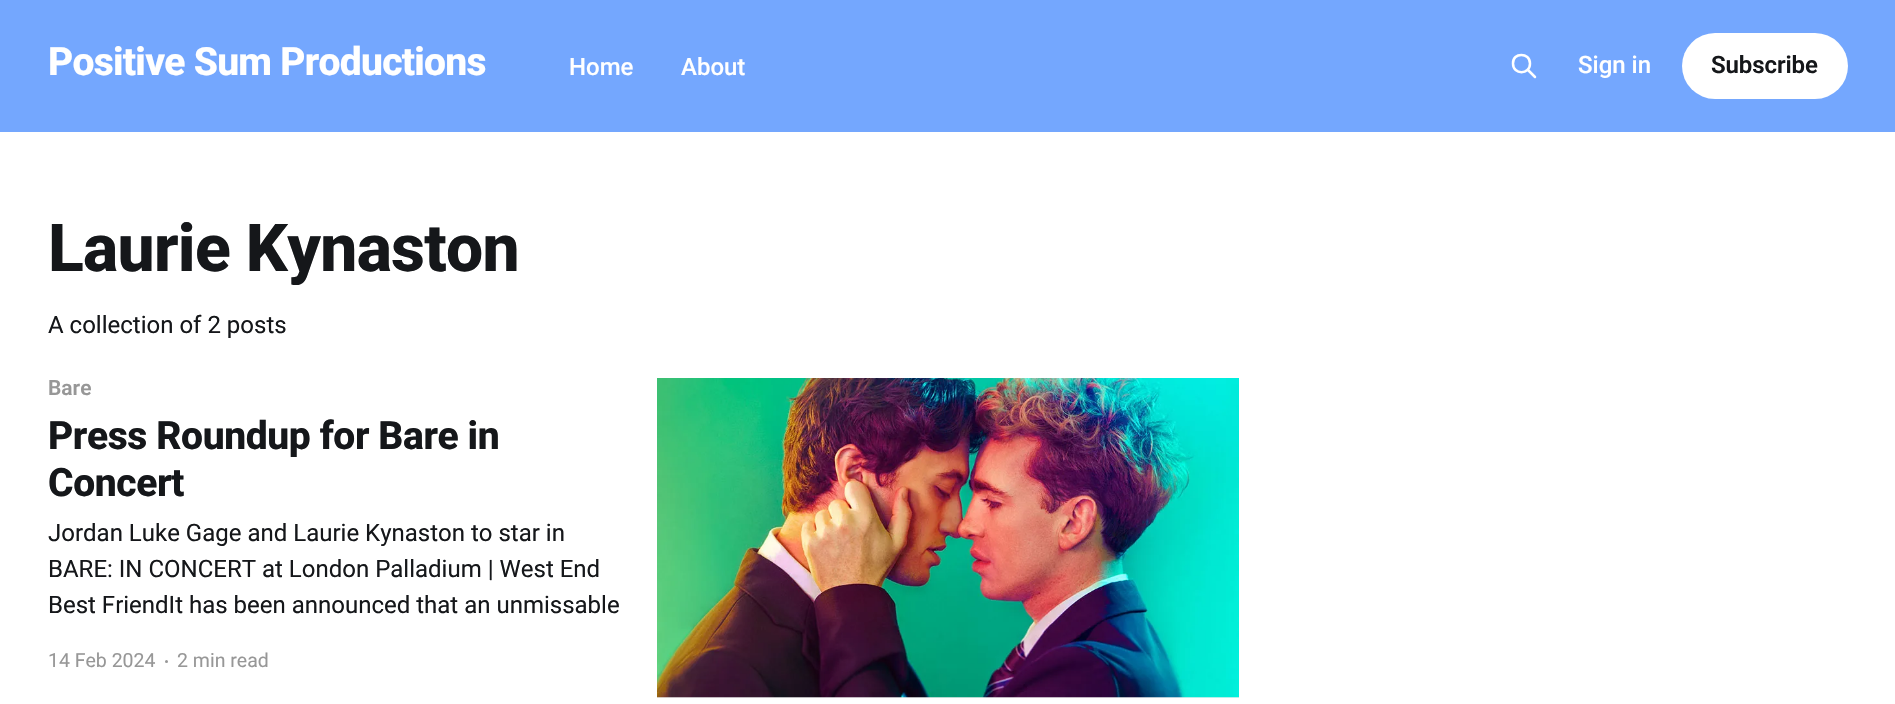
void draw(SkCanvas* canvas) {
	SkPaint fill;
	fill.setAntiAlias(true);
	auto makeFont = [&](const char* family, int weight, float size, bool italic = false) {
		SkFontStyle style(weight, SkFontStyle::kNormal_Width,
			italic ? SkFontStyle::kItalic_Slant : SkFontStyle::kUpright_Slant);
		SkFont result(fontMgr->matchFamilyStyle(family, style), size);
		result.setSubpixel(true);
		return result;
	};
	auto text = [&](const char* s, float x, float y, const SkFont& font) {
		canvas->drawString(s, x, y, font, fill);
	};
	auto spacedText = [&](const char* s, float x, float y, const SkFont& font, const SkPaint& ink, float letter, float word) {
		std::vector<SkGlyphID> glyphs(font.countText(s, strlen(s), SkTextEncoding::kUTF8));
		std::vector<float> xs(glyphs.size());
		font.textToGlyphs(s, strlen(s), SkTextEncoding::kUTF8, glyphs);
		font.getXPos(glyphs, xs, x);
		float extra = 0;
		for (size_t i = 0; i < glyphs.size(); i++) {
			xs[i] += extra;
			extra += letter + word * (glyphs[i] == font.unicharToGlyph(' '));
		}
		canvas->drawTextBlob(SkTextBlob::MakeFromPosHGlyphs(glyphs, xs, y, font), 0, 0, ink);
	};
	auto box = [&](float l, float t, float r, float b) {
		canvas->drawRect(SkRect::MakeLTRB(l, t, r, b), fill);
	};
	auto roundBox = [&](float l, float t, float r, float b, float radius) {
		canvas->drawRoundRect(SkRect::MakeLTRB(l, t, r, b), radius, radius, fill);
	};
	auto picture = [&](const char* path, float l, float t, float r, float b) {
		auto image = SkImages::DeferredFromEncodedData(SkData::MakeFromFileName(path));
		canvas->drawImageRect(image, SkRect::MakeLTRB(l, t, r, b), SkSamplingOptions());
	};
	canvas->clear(0xFFFFFFFF);
	fill.setColor(0xFF74A7FE);
	box(0, 0, 1895, 132);
	fill.setStyle(SkPaint::kStroke_Style);
	fill.setStrokeWidth(2.5f);
	fill.setStrokeCap(SkPaint::kRound_Cap);
	fill.setStrokeJoin(SkPaint::kRound_Join);
	fill.setColor(0xFFFFFFFF);
	canvas->drawPath(SkPathBuilder().moveTo(1535, 77).lineTo(1528, 70).moveTo(1530, 63.5f).cubicTo(1530, 75, 1513, 75, 1513, 63.5f).cubicTo(1512.5f, 52, 1530, 52, 1530, 63.5f).close().detach(), fill);
	fill.setStyle(SkPaint::kFill_Style);
	roundBox(1682, 33, 1848, 99, 33);
	fill.setColor(0xFF979797);
	canvas->drawCircle(166.5f, 661.5f, 1.5f, fill);
	fill.setColor(0xFFF1F1F1);
	box(657, 697, 1239, 698);
	picture("image0.png", 657, 378, 1239, 698);
	auto font1 = makeFont("Roboto", 800, 39);
	fill.setColor(0xFFFFFFFF);
	spacedText("Positive Sum Productions", 48, 75, font1, fill, -0.75f, 0);
	auto font2 = makeFont("Roboto", 500, 24);
	text("Home", 569, 75, font2);
	text("About", 681, 75, font2);
	text("Sign in", 1578, 73, font2);
	auto font3 = makeFont("Roboto", 600, 24);
	fill.setColor(0xFF15171A);
	spacedText("Subscribe", 1711, 73, font3, fill, -0.1f, 0);
	auto font4 = makeFont("Roboto", 800, 66);
	spacedText("Laurie Kynaston", 48, 271, font4, fill, -0.7f, 0);
	auto font5 = makeFont("Roboto", 400, 24);
	text("A collection of 2 posts", 48, 333, font5);
	auto font6 = makeFont("Roboto", 600, 21);
	fill.setColor(0xFF979797);
	text("Bare", 48, 395, font6);
	fill.setColor(0xFF15171A);
	spacedText("Press Roundup for Bare in", 48, 449, font1, fill, -0.4f, 0);
	spacedText("Concert", 48, 496, font1, fill, -0.4f, 0);
	text("Jordan Luke Gage and Laurie Kynaston to star in", 48, 541, font5);
	text("BARE: IN CONCERT at London Palladium | West End", 48, 577, font5);
	text("Best FriendIt has been announced that an unmissable", 48, 613, font5);
	auto font7 = makeFont("Roboto", 400, 19.5f);
	fill.setColor(0xFF979797);
	text("14 Feb 2024", 48, 667, font7);
	text("2 min read", 177, 667, font7);
}
